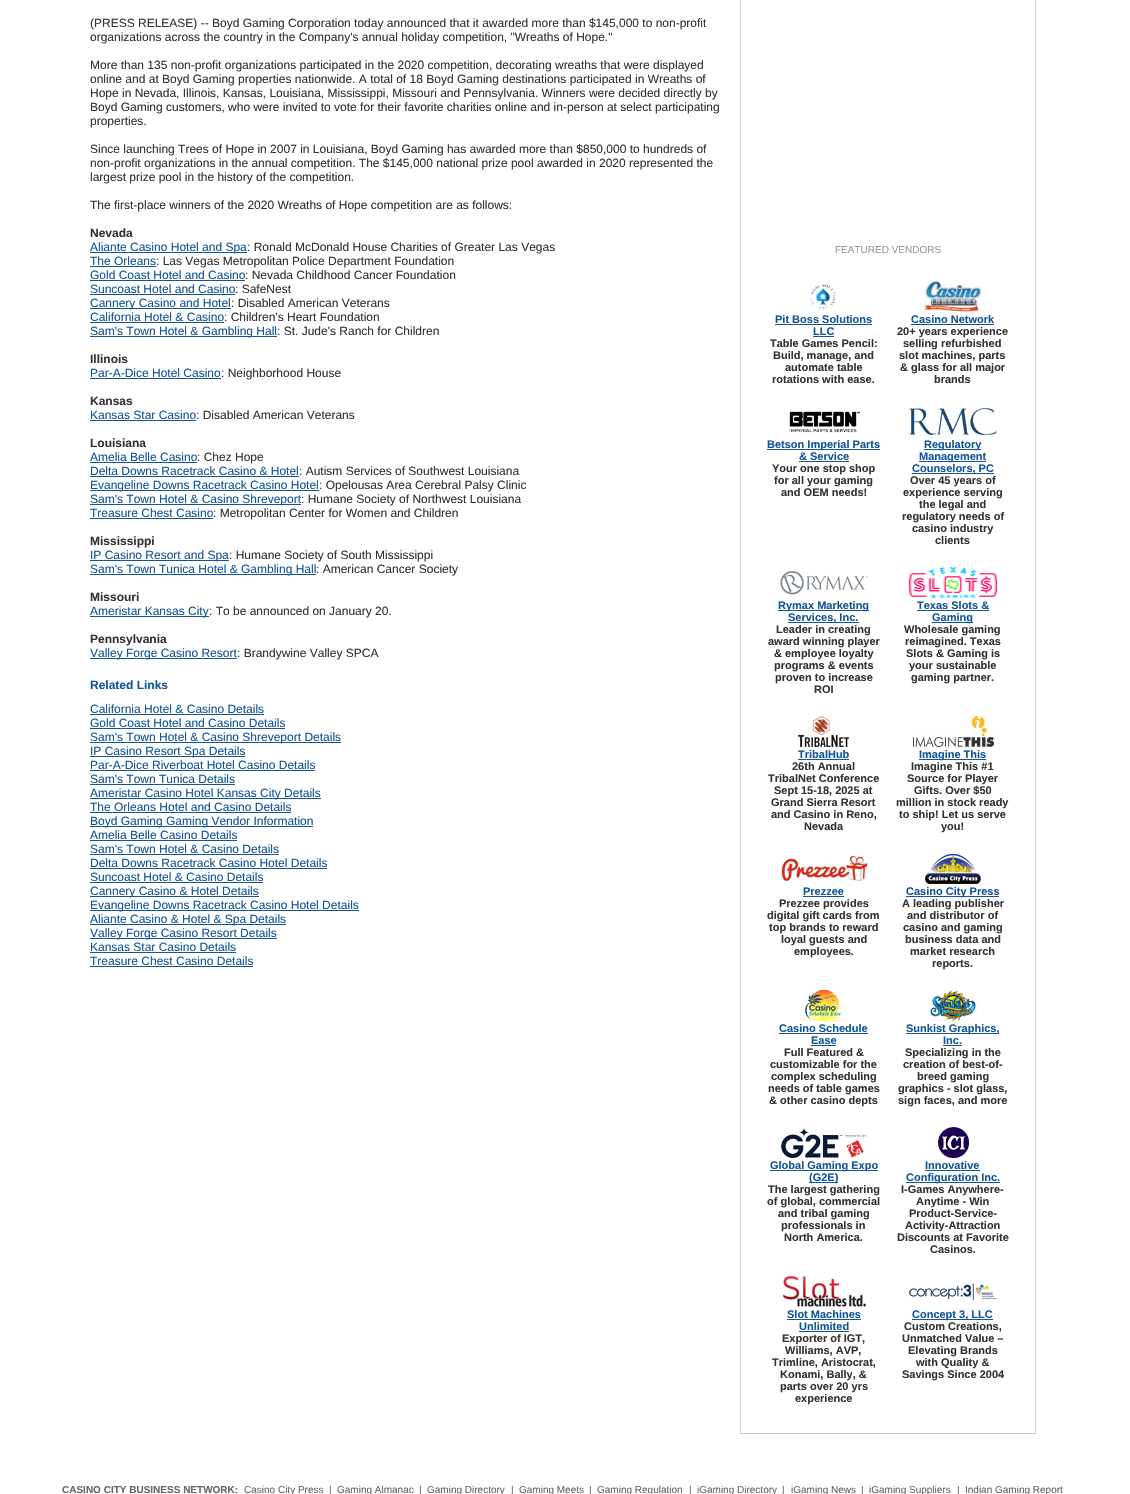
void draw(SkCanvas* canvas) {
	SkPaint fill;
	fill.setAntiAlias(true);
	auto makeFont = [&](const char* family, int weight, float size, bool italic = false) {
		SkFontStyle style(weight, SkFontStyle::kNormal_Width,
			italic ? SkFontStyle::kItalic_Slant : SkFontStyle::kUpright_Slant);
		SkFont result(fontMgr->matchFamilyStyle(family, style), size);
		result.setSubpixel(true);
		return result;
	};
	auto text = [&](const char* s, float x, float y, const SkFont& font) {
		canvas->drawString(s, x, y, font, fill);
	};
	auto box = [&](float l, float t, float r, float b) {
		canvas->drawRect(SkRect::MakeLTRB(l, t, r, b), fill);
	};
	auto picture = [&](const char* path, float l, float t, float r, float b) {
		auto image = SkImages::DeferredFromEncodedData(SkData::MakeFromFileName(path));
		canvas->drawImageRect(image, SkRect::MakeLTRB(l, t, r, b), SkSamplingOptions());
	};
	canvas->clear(0xFFFFFFFF);
	fill.setColor(0xFF125699);
	box(90, 252, 247, 253);
	box(90, 266, 156, 267);
	box(90, 280, 245, 281);
	box(90, 294, 235, 295);
	box(90, 308, 231, 309);
	box(90, 322, 224, 323);
	box(90, 336, 277, 337);
	box(90, 378, 221, 379);
	box(90, 420, 196, 421);
	box(90, 462, 197, 463);
	box(90, 476, 299, 477);
	box(90, 490, 319, 491);
	box(90, 504, 301, 505);
	box(90, 518, 213, 519);
	box(90, 560, 229, 561);
	box(90, 574, 316, 575);
	box(90, 616, 209, 617);
	box(90, 658, 237, 659);
	box(90, 714, 264, 715);
	box(90, 728, 285, 729);
	box(90, 742, 341, 743);
	box(90, 756, 245, 757);
	box(90, 770, 315, 771);
	box(90, 784, 235, 785);
	box(90, 798, 321, 799);
	box(90, 812, 291, 813);
	box(90, 826, 313, 827);
	box(90, 840, 237, 841);
	box(90, 854, 279, 855);
	box(90, 868, 327, 869);
	box(90, 882, 263, 883);
	box(90, 896, 259, 897);
	box(90, 910, 359, 911);
	box(90, 924, 286, 925);
	box(90, 938, 277, 939);
	box(90, 952, 236, 953);
	box(90, 966, 253, 967);
	fill.setStyle(SkPaint::kStroke_Style);
	fill.setStrokeWidth(1);
	fill.setColor(0xFFCCCCCC);
	canvas->drawRect(SkRect::MakeLTRB(740.5f, -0.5f, 1035.5f, 1433.5f), fill);
	picture("image0.png", 810, 284, 836, 310);
	picture("image1.png", 924, 281, 981, 312);
	fill.setStyle(SkPaint::kFill_Style);
	fill.setColor(0xFF125699);
	box(775, 324, 872, 325);
	box(813, 336, 834, 337);
	box(911, 324, 994, 325);
	picture("image2.png", 789, 411, 860, 433);
	picture("image3.png", 909, 406, 997, 437);
	box(767, 449, 880, 450);
	box(799, 461, 849, 462);
	box(924, 449, 981, 450);
	box(919, 461, 986, 462);
	box(912, 473, 994, 474);
	picture("image4.png", 780, 570, 868, 595);
	picture("image5.png", 909, 567, 997, 598);
	box(778, 610, 869, 611);
	box(788, 622, 859, 623);
	box(917, 610, 989, 611);
	box(932, 622, 973, 623);
	picture("image6.png", 798, 716, 849, 747);
	picture("image7.png", 912, 716, 997, 747);
	box(798, 759, 849, 760);
	box(919, 759, 986, 760);
	picture("image8.png", 781, 855, 868, 882);
	picture("image9.png", 925, 853, 981, 884);
	box(803, 896, 844, 897);
	box(906, 896, 999, 897);
	picture("image10.png", 805, 990, 842, 1021);
	picture("image11.png", 930, 990, 976, 1021);
	box(779, 1033, 868, 1034);
	box(811, 1045, 836, 1046);
	box(906, 1033, 999, 1034);
	box(943, 1045, 962, 1046);
	picture("image12.png", 781, 1128, 867, 1158);
	picture("image13.png", 938, 1127, 969, 1158);
	box(770, 1170, 878, 1171);
	box(809, 1182, 838, 1183);
	box(925, 1170, 980, 1171);
	box(906, 1182, 1000, 1183);
	picture("image14.png", 783, 1276, 866, 1307);
	picture("image15.png", 909, 1283, 997, 1301);
	box(787, 1319, 861, 1320);
	box(799, 1331, 849, 1332);
	box(912, 1319, 993, 1320);
	auto font1 = makeFont("Liberation Sans", 400, 12);
	fill.setColor(0xFF333333);
	text("(PRESS RELEASE) -- Boyd Gaming Corporation today announced that it awarded more than $145,000 to non-profit", 90, 27, font1);
	text("organizations across the country in the Company's annual holiday competition, \"Wreaths of Hope.\"", 90, 41, font1);
	text("More than 135 non-profit organizations participated in the 2020 competition, decorating wreaths that were displayed", 90, 69, font1);
	text("online and at Boyd Gaming properties nationwide. A total of 18 Boyd Gaming destinations participated in Wreaths of", 90, 83, font1);
	text("Hope in Nevada, Illinois, Kansas, Louisiana, Mississippi, Missouri and Pennsylvania. Winners were decided directly by", 90, 97, font1);
	text("Boyd Gaming customers, who were invited to vote for their favorite charities online and in-person at select participating", 90, 111, font1);
	text("properties.", 90, 125, font1);
	text("Since launching Trees of Hope in 2007 in Louisiana, Boyd Gaming has awarded more than $850,000 to hundreds of", 90, 153, font1);
	text("non-profit organizations in the annual competition. The $145,000 national prize pool awarded in 2020 represented the", 90, 167, font1);
	text("largest prize pool in the history of the competition.", 90, 181, font1);
	text("The first-place winners of the 2020 Wreaths of Hope competition are as follows:", 90, 209, font1);
	auto font2 = makeFont("Liberation Sans", 700, 12);
	text("Nevada", 90, 237, font2);
	fill.setColor(0xFF125699);
	text("Aliante Casino Hotel and Spa", 90, 251, font1);
	fill.setColor(0xFF333333);
	text(": Ronald McDonald House Charities of Greater Las Vegas", 247, 251, font1);
	fill.setColor(0xFF125699);
	text("The Orleans", 90, 265, font1);
	fill.setColor(0xFF333333);
	text(": Las Vegas Metropolitan Police Department Foundation", 156, 265, font1);
	fill.setColor(0xFF125699);
	text("Gold Coast Hotel and Casino", 90, 279, font1);
	fill.setColor(0xFF333333);
	text(": Nevada Childhood Cancer Foundation", 245, 279, font1);
	fill.setColor(0xFF125699);
	text("Suncoast Hotel and Casino", 90, 293, font1);
	fill.setColor(0xFF333333);
	text(": SafeNest", 235, 293, font1);
	fill.setColor(0xFF125699);
	text("Cannery Casino and Hotel", 90, 307, font1);
	fill.setColor(0xFF333333);
	text(": Disabled American Veterans", 231, 307, font1);
	fill.setColor(0xFF125699);
	text("California Hotel & Casino", 90, 321, font1);
	fill.setColor(0xFF333333);
	text(": Children's Heart Foundation", 224, 321, font1);
	fill.setColor(0xFF125699);
	text("Sam's Town Hotel & Gambling Hall", 90, 335, font1);
	fill.setColor(0xFF333333);
	text(": St. Jude's Ranch for Children", 277, 335, font1);
	text("Illinois", 90, 363, font2);
	fill.setColor(0xFF125699);
	text("Par-A-Dice Hotel Casino", 90, 377, font1);
	fill.setColor(0xFF333333);
	text(": Neighborhood House", 221, 377, font1);
	text("Kansas", 90, 405, font2);
	fill.setColor(0xFF125699);
	text("Kansas Star Casino", 90, 419, font1);
	fill.setColor(0xFF333333);
	text(": Disabled American Veterans", 196, 419, font1);
	text("Louisiana", 90, 447, font2);
	fill.setColor(0xFF125699);
	text("Amelia Belle Casino", 90, 461, font1);
	fill.setColor(0xFF333333);
	text(": Chez Hope", 197, 461, font1);
	fill.setColor(0xFF125699);
	text("Delta Downs Racetrack Casino & Hotel", 90, 475, font1);
	fill.setColor(0xFF333333);
	text(": Autism Services of Southwest Louisiana", 299, 475, font1);
	fill.setColor(0xFF125699);
	text("Evangeline Downs Racetrack Casino Hotel", 90, 489, font1);
	fill.setColor(0xFF333333);
	text(": Opelousas Area Cerebral Palsy Clinic", 319, 489, font1);
	fill.setColor(0xFF125699);
	text("Sam's Town Hotel & Casino Shreveport", 90, 503, font1);
	fill.setColor(0xFF333333);
	text(": Humane Society of Northwest Louisiana", 301, 503, font1);
	fill.setColor(0xFF125699);
	text("Treasure Chest Casino", 90, 517, font1);
	fill.setColor(0xFF333333);
	text(": Metropolitan Center for Women and Children", 213, 517, font1);
	text("Mississippi", 90, 545, font2);
	fill.setColor(0xFF125699);
	text("IP Casino Resort and Spa", 90, 559, font1);
	fill.setColor(0xFF333333);
	text(": Humane Society of South Mississippi", 229, 559, font1);
	fill.setColor(0xFF125699);
	text("Sam's Town Tunica Hotel & Gambling Hall", 90, 573, font1);
	fill.setColor(0xFF333333);
	text(": American Cancer Society", 316, 573, font1);
	text("Missouri", 90, 601, font2);
	fill.setColor(0xFF125699);
	text("Ameristar Kansas City", 90, 615, font1);
	fill.setColor(0xFF333333);
	text(": To be announced on January 20.", 209, 615, font1);
	text("Pennsylvania", 90, 643, font2);
	fill.setColor(0xFF125699);
	text("Valley Forge Casino Resort", 90, 657, font1);
	fill.setColor(0xFF333333);
	text(": Brandywine Valley SPCA", 237, 657, font1);
	fill.setColor(0xFF125699);
	text("Related Links", 90, 689, font2);
	text("California Hotel & Casino Details", 90, 713, font1);
	text("Gold Coast Hotel and Casino Details", 90, 727, font1);
	text("Sam's Town Hotel & Casino Shreveport Details", 90, 741, font1);
	text("IP Casino Resort Spa Details", 90, 755, font1);
	text("Par-A-Dice Riverboat Hotel Casino Details", 90, 769, font1);
	text("Sam's Town Tunica Details", 90, 783, font1);
	text("Ameristar Casino Hotel Kansas City Details", 90, 797, font1);
	text("The Orleans Hotel and Casino Details", 90, 811, font1);
	text("Boyd Gaming Gaming Vendor Information", 90, 825, font1);
	text("Amelia Belle Casino Details", 90, 839, font1);
	text("Sam's Town Hotel & Casino Details", 90, 853, font1);
	text("Delta Downs Racetrack Casino Hotel Details", 90, 867, font1);
	text("Suncoast Hotel & Casino Details", 90, 881, font1);
	text("Cannery Casino & Hotel Details", 90, 895, font1);
	text("Evangeline Downs Racetrack Casino Hotel Details", 90, 909, font1);
	text("Aliante Casino & Hotel & Spa Details", 90, 923, font1);
	text("Valley Forge Casino Resort Details", 90, 937, font1);
	text("Kansas Star Casino Details", 90, 951, font1);
	text("Treasure Chest Casino Details", 90, 965, font1);
	auto font3 = makeFont("Liberation Sans", 400, 10);
	fill.setColor(0xFF999999);
	text("FEATURED VENDORS", 835, 253, font3);
	auto font4 = makeFont("Liberation Sans", 700, 11);
	fill.setColor(0xFF125699);
	text("Pit Boss Solutions", 775, 323, font4);
	text("LLC", 813, 335, font4);
	fill.setColor(0xFF333333);
	text("Table Games Pencil:", 770, 347, font4);
	text("Build, manage, and", 773, 359, font4);
	text("automate table", 785, 371, font4);
	text("rotations with ease.", 772, 383, font4);
	fill.setColor(0xFF125699);
	text("Casino Network", 911, 323, font4);
	fill.setColor(0xFF333333);
	text("20+ years experience", 897, 335, font4);
	text("selling refurbished", 903, 347, font4);
	text("slot machines, parts", 899, 359, font4);
	text("& glass for all major", 900, 371, font4);
	text("brands", 934, 383, font4);
	fill.setColor(0xFF125699);
	text("Betson Imperial Parts", 767, 448, font4);
	text("& Service", 799, 460, font4);
	fill.setColor(0xFF333333);
	text("Your one stop shop", 772, 472, font4);
	text("for all your gaming", 774, 484, font4);
	text("and OEM needs!", 781, 496, font4);
	fill.setColor(0xFF125699);
	text("Regulatory", 924, 448, font4);
	text("Management", 919, 460, font4);
	text("Counselors, PC", 912, 472, font4);
	fill.setColor(0xFF333333);
	text("Over 45 years of", 910, 484, font4);
	text("experience serving", 903, 496, font4);
	text("the legal and", 919, 508, font4);
	text("regulatory needs of", 902, 520, font4);
	text("casino industry", 912, 532, font4);
	text("clients", 935, 544, font4);
	fill.setColor(0xFF125699);
	text("Rymax Marketing", 778, 609, font4);
	text("Services, Inc.", 788, 621, font4);
	fill.setColor(0xFF333333);
	text("Leader in creating", 776, 633, font4);
	text("award winning player", 768, 645, font4);
	text("& employee loyalty", 774, 657, font4);
	text("programs & events", 774, 669, font4);
	text("proven to increase", 775, 681, font4);
	text("ROI", 814, 693, font4);
	fill.setColor(0xFF125699);
	text("Texas Slots &", 917, 609, font4);
	text("Gaming", 932, 621, font4);
	fill.setColor(0xFF333333);
	text("Wholesale gaming", 904, 633, font4);
	text("reimagined. Texas", 905, 645, font4);
	text("Slots & Gaming is", 906, 657, font4);
	text("your sustainable", 909, 669, font4);
	text("gaming partner.", 911, 681, font4);
	fill.setColor(0xFF125699);
	text("TribalHub", 798, 758, font4);
	fill.setColor(0xFF333333);
	text("26th Annual", 792, 770, font4);
	text("TribalNet Conference", 768, 782, font4);
	text("Sept 15-18, 2025 at", 774, 794, font4);
	text("Grand Sierra Resort", 771, 806, font4);
	text("and Casino in Reno,", 771, 818, font4);
	text("Nevada", 804, 830, font4);
	fill.setColor(0xFF125699);
	text("Imagine This", 919, 758, font4);
	fill.setColor(0xFF333333);
	text("Imagine This #1", 911, 770, font4);
	text("Source for Player", 907, 782, font4);
	text("Gifts. Over $50", 914, 794, font4);
	text("million in stock ready", 896, 806, font4);
	text("to ship! Let us serve", 899, 818, font4);
	text("you!", 941, 830, font4);
	fill.setColor(0xFF125699);
	text("Prezzee", 803, 895, font4);
	fill.setColor(0xFF333333);
	text("Prezzee provides", 779, 907, font4);
	text("digital gift cards from", 767, 919, font4);
	text("top brands to reward", 769, 931, font4);
	text("loyal guests and", 781, 943, font4);
	text("employees.", 794, 955, font4);
	fill.setColor(0xFF125699);
	text("Casino City Press", 906, 895, font4);
	fill.setColor(0xFF333333);
	text("A leading publisher", 902, 907, font4);
	text("and distributor of", 907, 919, font4);
	text("casino and gaming", 903, 931, font4);
	text("business data and", 905, 943, font4);
	text("market research", 910, 955, font4);
	text("reports.", 932, 967, font4);
	fill.setColor(0xFF125699);
	text("Casino Schedule", 779, 1032, font4);
	text("Ease", 811, 1044, font4);
	fill.setColor(0xFF333333);
	text("Full Featured &", 784, 1056, font4);
	text("customizable for the", 770, 1068, font4);
	text("complex scheduling", 771, 1080, font4);
	text("needs of table games", 768, 1092, font4);
	text("& other casino depts", 769, 1104, font4);
	fill.setColor(0xFF125699);
	text("Sunkist Graphics,", 906, 1032, font4);
	text("Inc.", 943, 1044, font4);
	fill.setColor(0xFF333333);
	text("Specializing in the", 905, 1056, font4);
	text("creation of best-of-", 903, 1068, font4);
	text("breed gaming", 917, 1080, font4);
	text("graphics - slot glass,", 898, 1092, font4);
	text("sign faces, and more", 898, 1104, font4);
	fill.setColor(0xFF125699);
	text("Global Gaming Expo", 770, 1169, font4);
	text("(G2E)", 809, 1181, font4);
	fill.setColor(0xFF333333);
	text("The largest gathering", 768, 1193, font4);
	text("of global, commercial", 767, 1205, font4);
	text("and tribal gaming", 778, 1217, font4);
	text("professionals in", 781, 1229, font4);
	text("North America.", 784, 1241, font4);
	fill.setColor(0xFF125699);
	text("Innovative", 925, 1169, font4);
	text("Configuration Inc.", 906, 1181, font4);
	fill.setColor(0xFF333333);
	text("I-Games Anywhere-", 901, 1193, font4);
	text("Anytime - Win", 916, 1205, font4);
	text("Product-Service-", 909, 1217, font4);
	text("Activity-Attraction", 905, 1229, font4);
	text("Discounts at Favorite", 897, 1241, font4);
	text("Casinos.", 930, 1253, font4);
	fill.setColor(0xFF125699);
	text("Slot Machines", 787, 1318, font4);
	text("Unlimited", 799, 1330, font4);
	fill.setColor(0xFF333333);
	text("Exporter of IGT,", 782, 1342, font4);
	text("Williams, AVP,", 785, 1354, font4);
	text("Trimline, Aristocrat,", 772, 1366, font4);
	text("Konami, Bally, &", 780, 1378, font4);
	text("parts over 20 yrs", 780, 1390, font4);
	text("experience", 795, 1402, font4);
	fill.setColor(0xFF125699);
	text("Concept 3, LLC", 912, 1318, font4);
	fill.setColor(0xFF333333);
	text("Custom Creations,", 904, 1330, font4);
	text("Unmatched Value –", 902, 1342, font4);
	text("Elevating Brands", 908, 1354, font4);
	text("with Quality &", 916, 1366, font4);
	text("Savings Since 2004", 902, 1378, font4);
	auto font5 = makeFont("Liberation Sans", 700, 10);
	fill.setColor(0xFF666666);
	text("CASINO CITY BUSINESS NETWORK:", 62, 1493, font5);
	text("Casino City Press", 244, 1493, font3);
	text("|", 329, 1493, font3);
	text("Gaming Almanac", 337, 1493, font3);
	text("|", 419, 1493, font3);
	text("Gaming Directory", 427, 1493, font3);
	text("|", 511, 1493, font3);
	text("Gaming Meets", 519, 1493, font3);
	text("|", 589, 1493, font3);
	text("Gaming Regulation", 597, 1493, font3);
	text("|", 689, 1493, font3);
	text("iGaming Directory", 697, 1493, font3);
	text("|", 782, 1493, font3);
	text("iGaming News", 791, 1493, font3);
	text("|", 861, 1493, font3);
	text("iGaming Suppliers", 869, 1493, font3);
	text("|", 957, 1493, font3);
	text("Indian Gaming Report", 965, 1493, font3);
}
